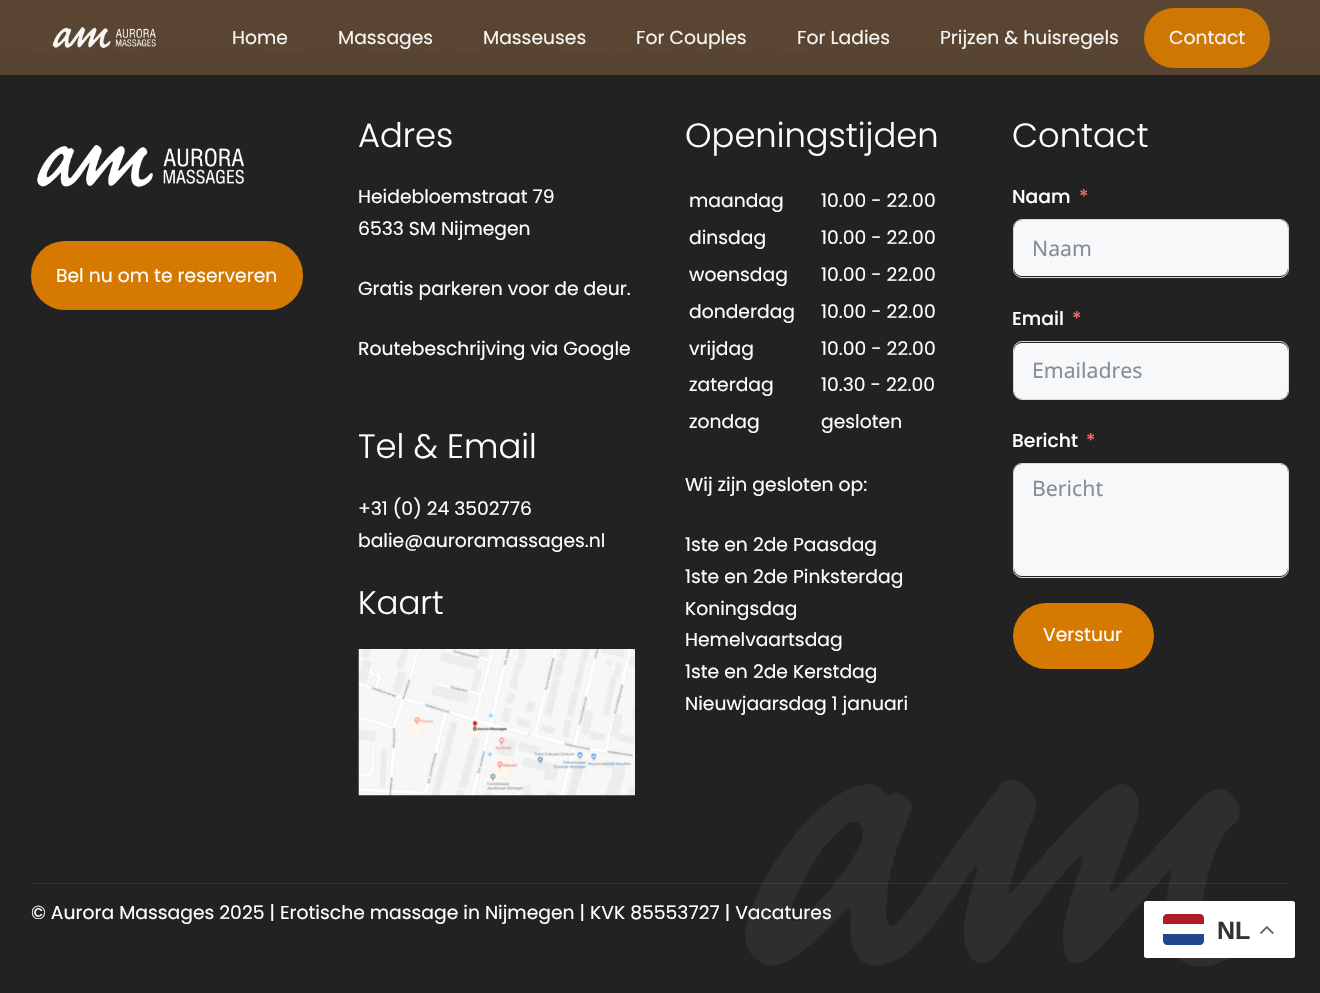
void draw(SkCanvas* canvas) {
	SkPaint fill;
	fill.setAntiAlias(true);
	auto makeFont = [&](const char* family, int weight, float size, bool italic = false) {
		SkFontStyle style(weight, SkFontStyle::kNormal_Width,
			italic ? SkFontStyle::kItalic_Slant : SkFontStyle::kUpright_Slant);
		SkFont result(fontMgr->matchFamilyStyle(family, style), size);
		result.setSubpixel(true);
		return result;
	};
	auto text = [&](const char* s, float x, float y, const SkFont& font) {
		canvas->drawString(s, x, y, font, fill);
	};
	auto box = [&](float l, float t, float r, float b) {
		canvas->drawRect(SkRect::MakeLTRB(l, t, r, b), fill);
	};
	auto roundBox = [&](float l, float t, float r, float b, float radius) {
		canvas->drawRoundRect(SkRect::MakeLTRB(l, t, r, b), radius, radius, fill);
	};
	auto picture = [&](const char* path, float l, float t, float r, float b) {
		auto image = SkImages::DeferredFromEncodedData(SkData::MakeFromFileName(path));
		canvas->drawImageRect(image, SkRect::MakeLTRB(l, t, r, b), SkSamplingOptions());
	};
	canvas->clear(0xFF5A4532);
	picture("image0.png", 7, 0, 861, 53);
	fill.setColor(0xFF222222);
	box(0, 53, 1320, 993);
	fill.setColor(0xF25A4532);
	box(0, 0, 1320, 75);
	picture("image1.png", 52, 27, 156, 48);
	fill.setColor(0xF2D57900);
	roundBox(1144, 8, 1270, 68, 30);
	picture("image2.png", 37, 145, 245, 187);
	fill.setColor(0xFFD57900);
	roundBox(31, 241, 303, 310, 34);
	picture("image3.png", 358, 649, 635, 796);
	fill.setColor(0xFF1F1F1F);
	box(685, 181, 963, 182);
	fill.setColor(0x1A000000);
	box(685, 181, 686, 440);
	fill.setColor(0xFFF7F8F9);
	roundBox(1014, 220, 1288, 276, 8);
	fill.setStyle(SkPaint::kStroke_Style);
	fill.setStrokeWidth(1);
	fill.setColor(0xFFDADBDD);
	canvas->drawRoundRect(SkRect::MakeLTRB(1013.5f, 219.5f, 1288.5f, 277.5f), 8.5f, 8.5f, fill);
	fill.setStyle(SkPaint::kFill_Style);
	fill.setColor(0xFFF7F8F9);
	roundBox(1014, 343, 1288, 399, 8);
	fill.setStyle(SkPaint::kStroke_Style);
	fill.setColor(0xFFDADBDD);
	canvas->drawRoundRect(SkRect::MakeLTRB(1013.5f, 341.5f, 1288.5f, 399.5f), 8.5f, 8.5f, fill);
	fill.setStyle(SkPaint::kFill_Style);
	fill.setColor(0xFFF7F8F9);
	roundBox(1014, 464, 1288, 576, 8);
	fill.setStyle(SkPaint::kStroke_Style);
	fill.setColor(0xFFDADBDD);
	canvas->drawRoundRect(SkRect::MakeLTRB(1013.5f, 463.5f, 1288.5f, 577.5f), 8.5f, 8.5f, fill);
	fill.setStyle(SkPaint::kFill_Style);
	fill.setColor(0xFFD57900);
	roundBox(1013, 603, 1154, 669, 33);
	fill.setColor(0xFF333333);
	box(31, 883, 1289, 884);
	auto font1 = makeFont("Poppins", 400, 18.75f);
	fill.setColor(0xFFF7F6F5);
	text("Home", 232, 44, font1);
	text("Massages", 338, 44, font1);
	text("Masseuses", 483, 44, font1);
	text("For Couples", 636, 44, font1);
	text("For Ladies", 797, 44, font1);
	text("Prijzen & huisregels", 940, 44, font1);
	text("Contact", 1169, 44, font1);
	fill.setColor(0xFFFFFFFF);
	text("Bel nu om te reserveren", 56, 282, font1);
	auto font2 = makeFont("Poppins", 300, 33.75f);
	text("Adres", 358, 147, font2);
	text("Heidebloemstraat 79", 358, 203, font1);
	text("6533 SM Nijmegen", 358, 235, font1);
	text("Gratis parkeren voor de deur.", 358, 295, font1);
	text("Routebeschrijving via Google", 358, 355, font1);
	text("Tel & Email", 358, 458, font2);
	text("+31 (0) 24 3502776", 358, 515, font1);
	text("balie@auroramassages.nl", 358, 547, font1);
	auto font3 = makeFont("Poppins", 300, 32.5f);
	text("Kaart", 358, 614, font3);
	text("Openingstijden", 685, 147, font2);
	text("maandag", 689, 207, font1);
	text("10.00 - 22.00", 821, 207, font1);
	text("dinsdag", 689, 244, font1);
	text("10.00 - 22.00", 821, 244, font1);
	text("woensdag", 689, 281, font1);
	text("10.00 - 22.00", 821, 281, font1);
	text("donderdag", 689, 318, font1);
	text("10.00 - 22.00", 821, 318, font1);
	text("vrijdag", 689, 355, font1);
	text("10.00 - 22.00", 821, 355, font1);
	text("zaterdag", 689, 391, font1);
	text("10.30 - 22.00", 821, 391, font1);
	text("zondag", 689, 428, font1);
	text("gesloten", 821, 428, font1);
	text("Wij zijn gesloten op:", 685, 491, font1);
	text("1ste en 2de Paasdag", 685, 551, font1);
	text("1ste en 2de Pinksterdag", 685, 583, font1);
	text("Koningsdag", 685, 615, font1);
	text("Hemelvaartsdag", 685, 646, font1);
	text("1ste en 2de Kerstdag", 685, 678, font1);
	text("Nieuwjaarsdag 1 januari", 685, 710, font1);
	text("Contact", 1012, 147, font2);
	auto font4 = makeFont("Poppins", 500, 18.75f);
	text("Naam", 1012, 203, font4);
	fill.setColor(0xFFF56C6C);
	text("*", 1079, 203, font4);
	auto font5 = makeFont("Noto Sans", 400, 21.25f);
	fill.setColor(0xFF868E96);
	text("Naam", 1032, 256, font5);
	fill.setColor(0xFFFFFFFF);
	text("Email", 1012, 325, font4);
	fill.setColor(0xFFF56C6C);
	text("*", 1072, 325, font4);
	fill.setColor(0xFF868E96);
	text("Emailadres", 1032, 378, font5);
	fill.setColor(0xFFFFFFFF);
	text("Bericht", 1012, 447, font4);
	fill.setColor(0xFFF56C6C);
	text("*", 1086, 447, font4);
	fill.setColor(0xFF868E96);
	text("Bericht", 1032, 496, font5);
	fill.setColor(0xFFFFFFFF);
	text("Verstuur", 1043, 641, font1);
	text("© Aurora Massages 2025 | Erotische massage in Nijmegen | KVK 85553727 | Vacatures", 31, 919, font1);
	picture("image4.png", 745, 780, 1240, 966);
	roundBox(1144, 901, 1295, 958, 2.5f);
	fill.setColor(0xFF21468B);
	canvas->drawPath(SkPathBuilder().moveTo(1163, 934).lineTo(1204, 934).lineTo(1204, 941).cubicTo(1204, 943, 1202, 945, 1200, 945).lineTo(1167, 945).cubicTo(1165, 945, 1163, 943, 1163, 941).close().detach(), fill);
	fill.setColor(0xFFAE1C28);
	canvas->drawPath(SkPathBuilder().moveTo(1167, 914).lineTo(1200, 914).cubicTo(1202, 914, 1204, 916, 1204, 918).lineTo(1204, 924).lineTo(1163, 924).lineTo(1163, 918).cubicTo(1163, 916, 1165, 914, 1167, 914).close().detach(), fill);
	auto font6 = makeFont("Liberation Sans", 700, 25);
	fill.setColor(0xFF333333);
	text("NL", 1217, 939, font6);
	picture("image5.png", 1260, 926, 1274, 934);
}
